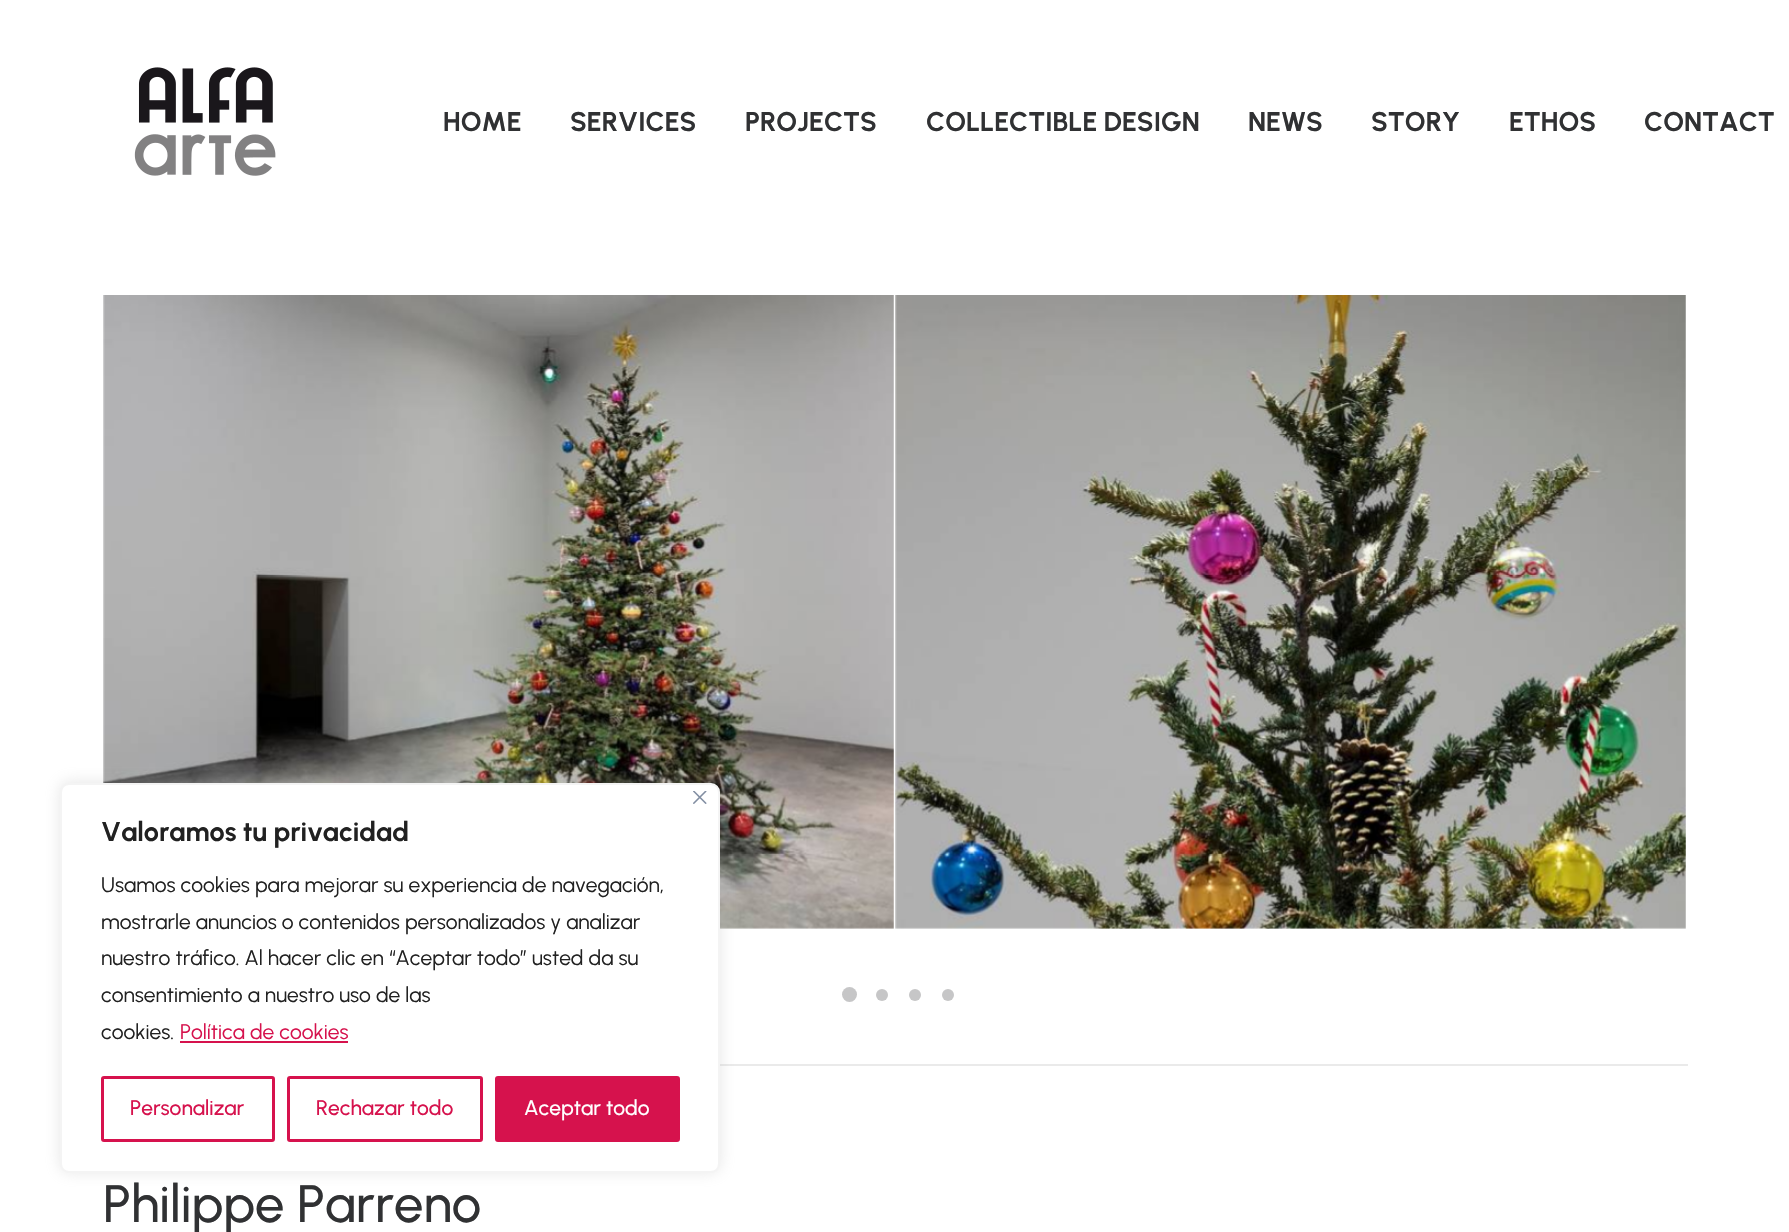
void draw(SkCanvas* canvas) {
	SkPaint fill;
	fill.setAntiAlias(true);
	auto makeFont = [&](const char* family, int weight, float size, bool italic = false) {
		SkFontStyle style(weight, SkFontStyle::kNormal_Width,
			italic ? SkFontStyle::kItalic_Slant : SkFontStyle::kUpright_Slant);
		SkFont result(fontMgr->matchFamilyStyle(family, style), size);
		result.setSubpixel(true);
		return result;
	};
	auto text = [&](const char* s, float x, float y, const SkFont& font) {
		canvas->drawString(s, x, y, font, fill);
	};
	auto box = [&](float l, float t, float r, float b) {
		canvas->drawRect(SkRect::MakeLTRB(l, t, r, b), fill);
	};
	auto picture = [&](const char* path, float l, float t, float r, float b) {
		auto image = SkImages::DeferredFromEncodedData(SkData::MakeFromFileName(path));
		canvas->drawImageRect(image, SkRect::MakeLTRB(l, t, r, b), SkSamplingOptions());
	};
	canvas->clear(0xFFFFFFFF);
	picture("image0.png", 134, 67, 276, 176);
	picture("image1.png", 103, 295, 894, 929);
	picture("image2.png", 895, 295, 1686, 929);
	fill.setColor(0xFFC6C6C7);
	canvas->drawCircle(849.5f, 994.5f, 7.5f, fill);
	canvas->drawCircle(882, 995, 6, fill);
	canvas->drawCircle(915, 995, 6, fill);
	canvas->drawCircle(948, 995, 6, fill);
	fill.setColor(0xFFEAEAEA);
	box(720, 1064, 1688, 1066);
	fill.setColor(0x4DACABAB);
	fill.setMaskFilter(SkMaskFilter::MakeBlur(kNormal_SkBlurStyle, 7.5f));
	canvas->drawRoundRect(SkRect::MakeLTRB(60, 782, 720, 1172), 9, 9, fill);
	fill.setMaskFilter(nullptr);
	fill.setColor(0xFFFFFFFF);
	canvas->drawRoundRect(SkRect::MakeLTRB(61, 784, 719, 1172), 8, 8, fill);
	fill.setStyle(SkPaint::kStroke_Style);
	fill.setStrokeWidth(2);
	fill.setColor(0xFFF4F4F4);
	canvas->drawRoundRect(SkRect::MakeLTRB(61, 784, 719, 1172), 8, 8, fill);
	picture("image3.png", 693, 791, 707, 804);
	fill.setStyle(SkPaint::kFill_Style);
	fill.setColor(0xFFD6124D);
	box(180, 1041, 348, 1043);
	fill.setStyle(SkPaint::kStroke_Style);
	fill.setStrokeWidth(3);
	canvas->drawRoundRect(SkRect::MakeLTRB(102.5f, 1077.5f, 273.5f, 1140.5f), 1.5f, 1.5f, fill);
	canvas->drawRoundRect(SkRect::MakeLTRB(288.5f, 1077.5f, 481.5f, 1140.5f), 1.5f, 1.5f, fill);
	fill.setStyle(SkPaint::kFill_Style);
	canvas->drawRoundRect(SkRect::MakeLTRB(496.5f, 1077.5f, 678.5f, 1140.5f), 1.5f, 1.5f, fill);
	fill.setStyle(SkPaint::kStroke_Style);
	canvas->drawRoundRect(SkRect::MakeLTRB(496.5f, 1077.5f, 678.5f, 1140.5f), 1.5f, 1.5f, fill);
	auto font1 = makeFont("Urbanist", 700, 27);
	fill.setStyle(SkPaint::kFill_Style);
	fill.setColor(0xFF303133);
	text("HOME", 443, 131, font1);
	text("SERVICES", 570, 131, font1);
	text("PROJECTS", 745, 131, font1);
	text("COLLECTIBLE DESIGN", 926, 131, font1);
	text("NEWS", 1248, 131, font1);
	text("STORY", 1371, 131, font1);
	text("ETHOS", 1509, 131, font1);
	text("CONTACT", 1644, 131, font1);
	auto font2 = makeFont("Urbanist", 500, 52.5f);
	text("Philippe Parreno", 103, 1222, font2);
	fill.setColor(0xFF212121);
	text("Valoramos tu privacidad", 101, 841, font1);
	auto font3 = makeFont("Urbanist", 400, 21);
	text("Usamos cookies para mejorar su experiencia de navegación,", 101, 892, font3);
	text("mostrarle anuncios o contenidos personalizados y analizar", 101, 929, font3);
	text("nuestro tráfico. Al hacer clic en “Aceptar todo” usted da su", 101, 965, font3);
	text("consentimiento a nuestro uso de las", 101, 1002, font3);
	text("cookies.", 101, 1039, font3);
	fill.setColor(0xFFD6124D);
	text("Política de cookies", 180, 1039, font3);
	auto font4 = makeFont("Urbanist", 500, 21);
	text("Personalizar", 130, 1115, font4);
	text("Rechazar todo", 316, 1115, font4);
	fill.setColor(0xFFFFFFFF);
	text("Aceptar todo", 524, 1115, font4);
}
